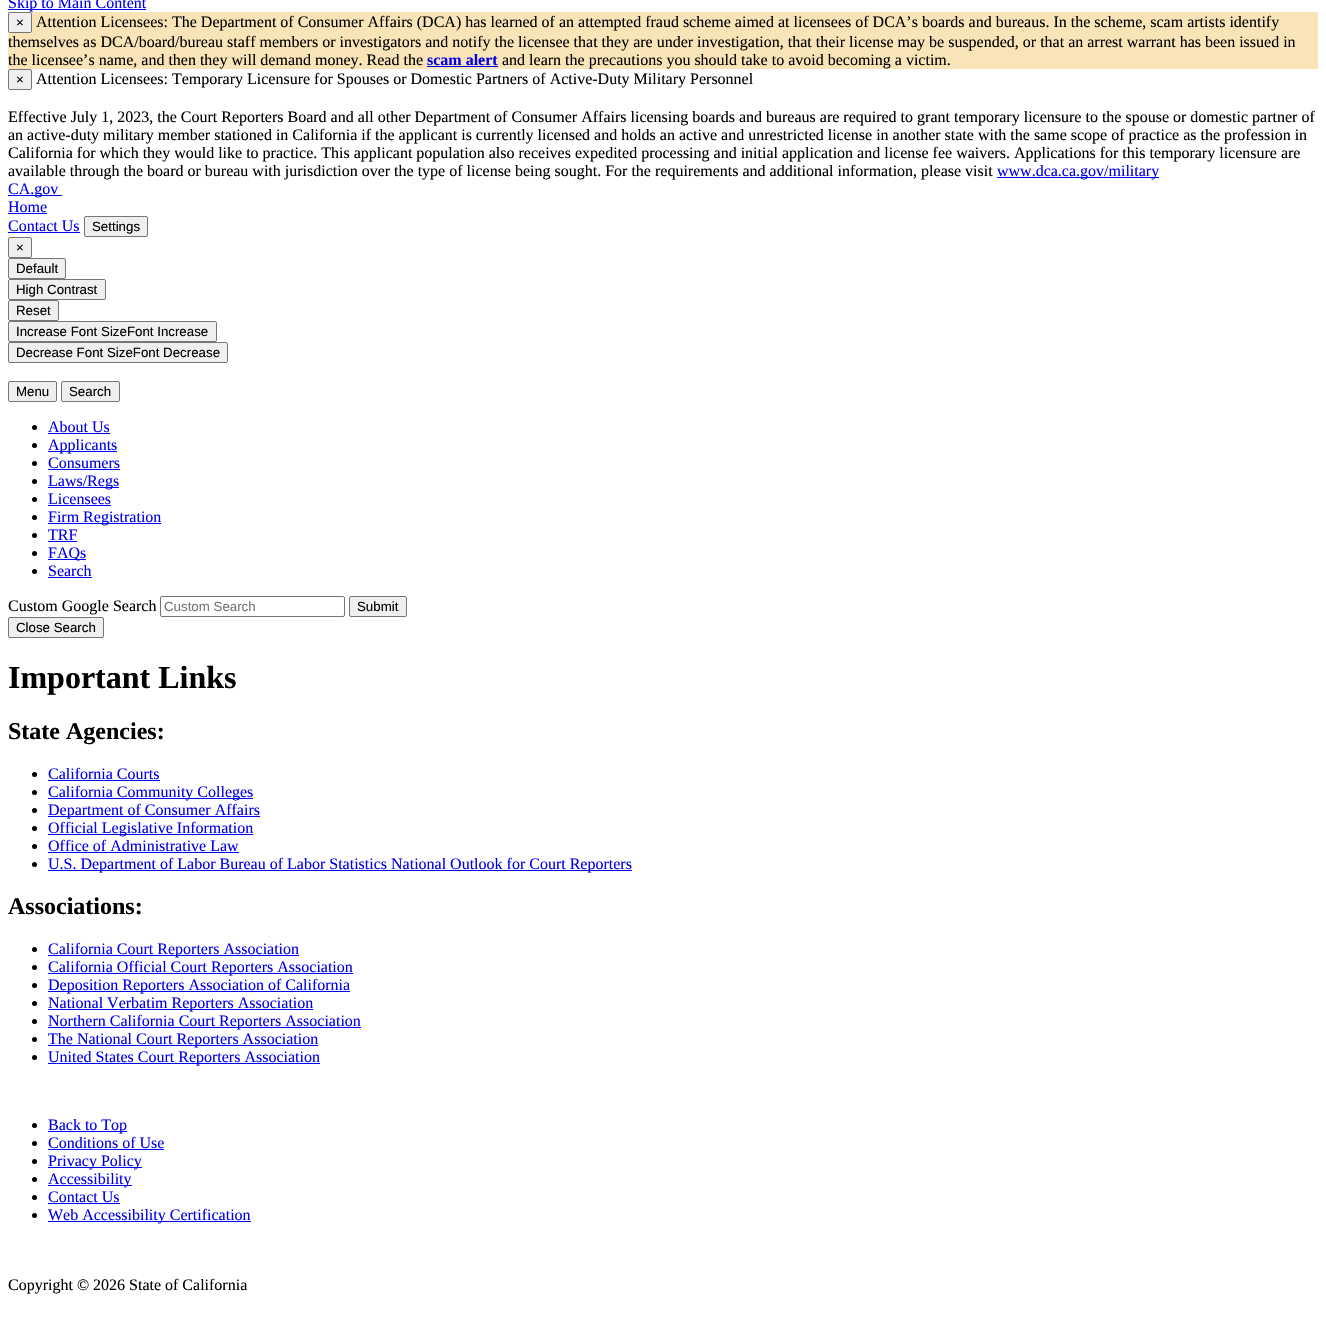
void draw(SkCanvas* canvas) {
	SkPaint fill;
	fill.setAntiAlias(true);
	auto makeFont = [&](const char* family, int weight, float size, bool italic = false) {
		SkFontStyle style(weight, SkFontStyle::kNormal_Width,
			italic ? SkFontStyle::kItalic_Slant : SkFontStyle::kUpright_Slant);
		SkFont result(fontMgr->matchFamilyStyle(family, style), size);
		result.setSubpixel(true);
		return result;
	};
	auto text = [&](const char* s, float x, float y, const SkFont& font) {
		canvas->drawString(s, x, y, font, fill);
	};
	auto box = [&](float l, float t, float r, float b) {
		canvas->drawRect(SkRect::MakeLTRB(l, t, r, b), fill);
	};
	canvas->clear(0xFFFFFFFF);
	fill.setColor(0xFF0000EE);
	box(8, 9, 146, 10);
	fill.setColor(0xFFF8E4B7);
	box(8, 12, 1318, 69);
	fill.setColor(0xFFEFEFEF);
	canvas->drawRoundRect(SkRect::MakeLTRB(8.5f, 12.5f, 31.5f, 32.5f), 1.5f, 1.5f, fill);
	fill.setStyle(SkPaint::kStroke_Style);
	fill.setStrokeWidth(1);
	fill.setColor(0xFF767676);
	canvas->drawRoundRect(SkRect::MakeLTRB(8.5f, 12.5f, 31.5f, 32.5f), 1.5f, 1.5f, fill);
	fill.setStyle(SkPaint::kFill_Style);
	fill.setColor(0xFF0000EE);
	box(427, 66, 498, 67);
	fill.setColor(0xFFEFEFEF);
	canvas->drawRoundRect(SkRect::MakeLTRB(8.5f, 69.5f, 31.5f, 89.5f), 1.5f, 1.5f, fill);
	fill.setStyle(SkPaint::kStroke_Style);
	fill.setColor(0xFF767676);
	canvas->drawRoundRect(SkRect::MakeLTRB(8.5f, 69.5f, 31.5f, 89.5f), 1.5f, 1.5f, fill);
	fill.setStyle(SkPaint::kFill_Style);
	fill.setColor(0xFF0000EE);
	box(997, 177, 1159, 178);
	box(8, 195, 58, 196);
	box(58, 195, 62, 196);
	box(8, 213, 47, 214);
	box(8, 232, 80, 233);
	fill.setColor(0xFFEFEFEF);
	canvas->drawRoundRect(SkRect::MakeLTRB(84.5f, 216.5f, 147.5f, 236.5f), 1.5f, 1.5f, fill);
	fill.setStyle(SkPaint::kStroke_Style);
	fill.setColor(0xFF767676);
	canvas->drawRoundRect(SkRect::MakeLTRB(84.5f, 216.5f, 147.5f, 236.5f), 1.5f, 1.5f, fill);
	fill.setStyle(SkPaint::kFill_Style);
	fill.setColor(0xFFEFEFEF);
	canvas->drawRoundRect(SkRect::MakeLTRB(8.5f, 237.5f, 31.5f, 257.5f), 1.5f, 1.5f, fill);
	fill.setStyle(SkPaint::kStroke_Style);
	fill.setColor(0xFF767676);
	canvas->drawRoundRect(SkRect::MakeLTRB(8.5f, 237.5f, 31.5f, 257.5f), 1.5f, 1.5f, fill);
	fill.setStyle(SkPaint::kFill_Style);
	fill.setColor(0xFFEFEFEF);
	canvas->drawRoundRect(SkRect::MakeLTRB(8.5f, 258.5f, 65.5f, 278.5f), 1.5f, 1.5f, fill);
	fill.setStyle(SkPaint::kStroke_Style);
	fill.setColor(0xFF767676);
	canvas->drawRoundRect(SkRect::MakeLTRB(8.5f, 258.5f, 65.5f, 278.5f), 1.5f, 1.5f, fill);
	fill.setStyle(SkPaint::kFill_Style);
	fill.setColor(0xFFEFEFEF);
	canvas->drawRoundRect(SkRect::MakeLTRB(8.5f, 279.5f, 105.5f, 299.5f), 1.5f, 1.5f, fill);
	fill.setStyle(SkPaint::kStroke_Style);
	fill.setColor(0xFF767676);
	canvas->drawRoundRect(SkRect::MakeLTRB(8.5f, 279.5f, 105.5f, 299.5f), 1.5f, 1.5f, fill);
	fill.setStyle(SkPaint::kFill_Style);
	fill.setColor(0xFFEFEFEF);
	canvas->drawRoundRect(SkRect::MakeLTRB(8.5f, 300.5f, 58.5f, 320.5f), 1.5f, 1.5f, fill);
	fill.setStyle(SkPaint::kStroke_Style);
	fill.setColor(0xFF767676);
	canvas->drawRoundRect(SkRect::MakeLTRB(8.5f, 300.5f, 58.5f, 320.5f), 1.5f, 1.5f, fill);
	fill.setStyle(SkPaint::kFill_Style);
	fill.setColor(0xFFEFEFEF);
	canvas->drawRoundRect(SkRect::MakeLTRB(8.5f, 321.5f, 216.5f, 341.5f), 1.5f, 1.5f, fill);
	fill.setStyle(SkPaint::kStroke_Style);
	fill.setColor(0xFF767676);
	canvas->drawRoundRect(SkRect::MakeLTRB(8.5f, 321.5f, 216.5f, 341.5f), 1.5f, 1.5f, fill);
	fill.setStyle(SkPaint::kFill_Style);
	fill.setColor(0xFFEFEFEF);
	canvas->drawRoundRect(SkRect::MakeLTRB(8.5f, 342.5f, 227.5f, 362.5f), 1.5f, 1.5f, fill);
	fill.setStyle(SkPaint::kStroke_Style);
	fill.setColor(0xFF767676);
	canvas->drawRoundRect(SkRect::MakeLTRB(8.5f, 342.5f, 227.5f, 362.5f), 1.5f, 1.5f, fill);
	fill.setStyle(SkPaint::kFill_Style);
	fill.setColor(0xFFEFEFEF);
	canvas->drawRoundRect(SkRect::MakeLTRB(8.5f, 381.5f, 56.5f, 401.5f), 1.5f, 1.5f, fill);
	fill.setStyle(SkPaint::kStroke_Style);
	fill.setColor(0xFF767676);
	canvas->drawRoundRect(SkRect::MakeLTRB(8.5f, 381.5f, 56.5f, 401.5f), 1.5f, 1.5f, fill);
	fill.setStyle(SkPaint::kFill_Style);
	fill.setColor(0xFFEFEFEF);
	canvas->drawRoundRect(SkRect::MakeLTRB(61.5f, 381.5f, 119.5f, 401.5f), 1.5f, 1.5f, fill);
	fill.setStyle(SkPaint::kStroke_Style);
	fill.setColor(0xFF767676);
	canvas->drawRoundRect(SkRect::MakeLTRB(61.5f, 381.5f, 119.5f, 401.5f), 1.5f, 1.5f, fill);
	fill.setStyle(SkPaint::kFill_Style);
	fill.setColor(0xFF000000);
	canvas->drawCircle(34.5f, 427.5f, 2.5f, fill);
	fill.setColor(0xFF0000EE);
	box(48, 433, 110, 434);
	fill.setColor(0xFF000000);
	canvas->drawCircle(34.5f, 445.5f, 2.5f, fill);
	fill.setColor(0xFF0000EE);
	box(48, 451, 117, 452);
	fill.setColor(0xFF000000);
	canvas->drawCircle(34.5f, 463.5f, 2.5f, fill);
	fill.setColor(0xFF0000EE);
	box(48, 469, 120, 470);
	fill.setColor(0xFF000000);
	canvas->drawCircle(34.5f, 481.5f, 2.5f, fill);
	fill.setColor(0xFF0000EE);
	box(48, 487, 119, 488);
	fill.setColor(0xFF000000);
	canvas->drawCircle(34.5f, 499.5f, 2.5f, fill);
	fill.setColor(0xFF0000EE);
	box(48, 505, 111, 506);
	fill.setColor(0xFF000000);
	canvas->drawCircle(34.5f, 517.5f, 2.5f, fill);
	fill.setColor(0xFF0000EE);
	box(48, 523, 161, 524);
	fill.setColor(0xFF000000);
	canvas->drawCircle(34.5f, 535.5f, 2.5f, fill);
	fill.setColor(0xFF0000EE);
	box(48, 541, 77, 542);
	fill.setColor(0xFF000000);
	canvas->drawCircle(34.5f, 553.5f, 2.5f, fill);
	fill.setColor(0xFF0000EE);
	box(48, 559, 86, 560);
	fill.setColor(0xFF000000);
	canvas->drawCircle(34.5f, 571.5f, 2.5f, fill);
	fill.setColor(0xFF0000EE);
	box(48, 577, 92, 578);
	fill.setStyle(SkPaint::kStroke_Style);
	fill.setColor(0xFF767676);
	canvas->drawRoundRect(SkRect::MakeLTRB(160.5f, 596.5f, 344.5f, 616.5f), 1.5f, 1.5f, fill);
	fill.setStyle(SkPaint::kFill_Style);
	fill.setColor(0xFFEFEFEF);
	canvas->drawRoundRect(SkRect::MakeLTRB(349.5f, 596.5f, 406.5f, 616.5f), 1.5f, 1.5f, fill);
	fill.setStyle(SkPaint::kStroke_Style);
	fill.setColor(0xFF767676);
	canvas->drawRoundRect(SkRect::MakeLTRB(349.5f, 596.5f, 406.5f, 616.5f), 1.5f, 1.5f, fill);
	fill.setStyle(SkPaint::kFill_Style);
	fill.setColor(0xFFEFEFEF);
	canvas->drawRoundRect(SkRect::MakeLTRB(8.5f, 617.5f, 103.5f, 637.5f), 1.5f, 1.5f, fill);
	fill.setStyle(SkPaint::kStroke_Style);
	fill.setColor(0xFF767676);
	canvas->drawRoundRect(SkRect::MakeLTRB(8.5f, 617.5f, 103.5f, 637.5f), 1.5f, 1.5f, fill);
	fill.setStyle(SkPaint::kFill_Style);
	fill.setColor(0xFF000000);
	canvas->drawCircle(34.5f, 774.5f, 2.5f, fill);
	fill.setColor(0xFF0000EE);
	box(48, 780, 160, 781);
	fill.setColor(0xFF000000);
	canvas->drawCircle(34.5f, 792.5f, 2.5f, fill);
	fill.setColor(0xFF0000EE);
	box(48, 798, 253, 799);
	fill.setColor(0xFF000000);
	canvas->drawCircle(34.5f, 810.5f, 2.5f, fill);
	fill.setColor(0xFF0000EE);
	box(48, 816, 260, 817);
	fill.setColor(0xFF000000);
	canvas->drawCircle(34.5f, 828.5f, 2.5f, fill);
	fill.setColor(0xFF0000EE);
	box(48, 834, 253, 835);
	fill.setColor(0xFF000000);
	canvas->drawCircle(34.5f, 846.5f, 2.5f, fill);
	fill.setColor(0xFF0000EE);
	box(48, 852, 239, 853);
	fill.setColor(0xFF000000);
	canvas->drawCircle(34.5f, 864.5f, 2.5f, fill);
	fill.setColor(0xFF0000EE);
	box(48, 870, 632, 871);
	fill.setColor(0xFF000000);
	canvas->drawCircle(34.5f, 949.5f, 2.5f, fill);
	fill.setColor(0xFF0000EE);
	box(48, 955, 299, 956);
	fill.setColor(0xFF000000);
	canvas->drawCircle(34.5f, 967.5f, 2.5f, fill);
	fill.setColor(0xFF0000EE);
	box(48, 973, 353, 974);
	fill.setColor(0xFF000000);
	canvas->drawCircle(34.5f, 985.5f, 2.5f, fill);
	fill.setColor(0xFF0000EE);
	box(48, 991, 350, 992);
	fill.setColor(0xFF000000);
	canvas->drawCircle(34.5f, 1003.5f, 2.5f, fill);
	fill.setColor(0xFF0000EE);
	box(48, 1009, 313, 1010);
	fill.setColor(0xFF000000);
	canvas->drawCircle(34.5f, 1021.5f, 2.5f, fill);
	fill.setColor(0xFF0000EE);
	box(48, 1027, 361, 1028);
	fill.setColor(0xFF000000);
	canvas->drawCircle(34.5f, 1039.5f, 2.5f, fill);
	fill.setColor(0xFF0000EE);
	box(48, 1045, 318, 1046);
	fill.setColor(0xFF000000);
	canvas->drawCircle(34.5f, 1057.5f, 2.5f, fill);
	fill.setColor(0xFF0000EE);
	box(48, 1063, 320, 1064);
	fill.setColor(0xFF000000);
	canvas->drawCircle(34.5f, 1125.5f, 2.5f, fill);
	fill.setColor(0xFF0000EE);
	box(48, 1131, 127, 1132);
	fill.setColor(0xFF000000);
	canvas->drawCircle(34.5f, 1143.5f, 2.5f, fill);
	fill.setColor(0xFF0000EE);
	box(48, 1149, 164, 1150);
	fill.setColor(0xFF000000);
	canvas->drawCircle(34.5f, 1161.5f, 2.5f, fill);
	fill.setColor(0xFF0000EE);
	box(48, 1167, 142, 1168);
	fill.setColor(0xFF000000);
	canvas->drawCircle(34.5f, 1179.5f, 2.5f, fill);
	fill.setColor(0xFF0000EE);
	box(48, 1185, 132, 1186);
	fill.setColor(0xFF000000);
	canvas->drawCircle(34.5f, 1197.5f, 2.5f, fill);
	fill.setColor(0xFF0000EE);
	box(48, 1203, 120, 1204);
	fill.setColor(0xFF000000);
	canvas->drawCircle(34.5f, 1215.5f, 2.5f, fill);
	fill.setColor(0xFF0000EE);
	box(48, 1221, 251, 1222);
	auto font1 = makeFont("Liberation Serif", 400, 16);
	text("Skip to Main Content", 8, 8, font1);
	auto font2 = makeFont("Liberation Sans", 400, 13.3f);
	fill.setColor(0xFF000000);
	text("×", 16, 27, font2);
	text("Attention Licensees: The Department of Consumer Affairs (DCA) has learned of an attempted fraud scheme aimed at licensees of DCA’s boards and bureaus. In the scheme, scam artists identify", 36, 27, font1);
	text("themselves as DCA/board/bureau staff members or investigators and notify the licensee that they are under investigation, that their license may be suspended, or that an arrest warrant has been issued in", 8, 47, font1);
	text("the licensee’s name, and then they will demand money. Read the", 8, 65, font1);
	auto font3 = makeFont("Liberation Serif", 700, 16);
	fill.setColor(0xFF0000EE);
	text("scam alert", 427, 65, font3);
	fill.setColor(0xFF000000);
	text("and learn the precautions you should take to avoid becoming a victim.", 502, 65, font1);
	text("×", 16, 84, font2);
	text("Attention Licensees: Temporary Licensure for Spouses or Domestic Partners of Active-Duty Military Personnel", 36, 84, font1);
	text("Effective July 1, 2023, the Court Reporters Board and all other Department of Consumer Affairs licensing boards and bureaus are required to grant temporary licensure to the spouse or domestic partner of", 8, 122, font1);
	text("an active-duty military member stationed in California if the applicant is currently licensed and holds an active and unrestricted license in another state with the same scope of practice as the profession in", 8, 140, font1);
	text("California for which they would like to practice. This applicant population also receives expedited processing and initial application and license fee waivers. Applications for this temporary licensure are", 8, 158, font1);
	text("available through the board or bureau with jurisdiction over the type of license being sought. For the requirements and additional information, please visit", 8, 176, font1);
	fill.setColor(0xFF0000EE);
	text("www.dca.ca.gov/military", 997, 176, font1);
	text("CA.gov", 8, 194, font1);
	text("Home", 8, 212, font1);
	text("Contact Us", 8, 231, font1);
	fill.setColor(0xFF000000);
	text("Settings", 92, 231, font2);
	text("×", 16, 252, font2);
	text("Default", 16, 273, font2);
	text("High Contrast", 16, 294, font2);
	text("Reset", 16, 315, font2);
	text("Increase Font SizeFont Increase", 16, 336, font2);
	text("Decrease Font SizeFont Decrease", 16, 357, font2);
	text("Menu", 16, 396, font2);
	text("Search", 69, 396, font2);
	fill.setColor(0xFF0000EE);
	text("About Us", 48, 432, font1);
	text("Applicants", 48, 450, font1);
	text("Consumers", 48, 468, font1);
	text("Laws/Regs", 48, 486, font1);
	text("Licensees", 48, 504, font1);
	text("Firm Registration", 48, 522, font1);
	text("TRF", 48, 540, font1);
	text("FAQs", 48, 558, font1);
	text("Search", 48, 576, font1);
	fill.setColor(0xFF000000);
	text("Custom Google Search", 8, 611, font1);
	fill.setColor(0xFF757575);
	text("Custom Search", 164, 611, font2);
	fill.setColor(0xFF000000);
	text("Submit", 357, 611, font2);
	text("Close Search", 16, 632, font2);
	auto font4 = makeFont("Liberation Serif", 700, 32);
	text("Important Links", 8, 688, font4);
	auto font5 = makeFont("Liberation Serif", 700, 24);
	text("State Agencies:", 8, 739, font5);
	fill.setColor(0xFF0000EE);
	text("California Courts", 48, 779, font1);
	text("California Community Colleges", 48, 797, font1);
	text("Department of Consumer Affairs", 48, 815, font1);
	text("Official Legislative Information", 48, 833, font1);
	text("Office of Administrative Law", 48, 851, font1);
	text("U.S. Department of Labor Bureau of Labor Statistics National Outlook for Court Reporters", 48, 869, font1);
	fill.setColor(0xFF000000);
	text("Associations:", 8, 914, font5);
	fill.setColor(0xFF0000EE);
	text("California Court Reporters Association", 48, 954, font1);
	text("California Official Court Reporters Association", 48, 972, font1);
	text("Deposition Reporters Association of California", 48, 990, font1);
	text("National Verbatim Reporters Association", 48, 1008, font1);
	text("Northern California Court Reporters Association", 48, 1026, font1);
	text("The National Court Reporters Association", 48, 1044, font1);
	text("United States Court Reporters Association", 48, 1062, font1);
	text("Back to Top", 48, 1130, font1);
	text("Conditions of Use", 48, 1148, font1);
	text("Privacy Policy", 48, 1166, font1);
	text("Accessibility", 48, 1184, font1);
	text("Contact Us", 48, 1202, font1);
	text("Web Accessibility Certification", 48, 1220, font1);
	fill.setColor(0xFF000000);
	text("Copyright © 2026 State of California", 8, 1290, font1);
}
